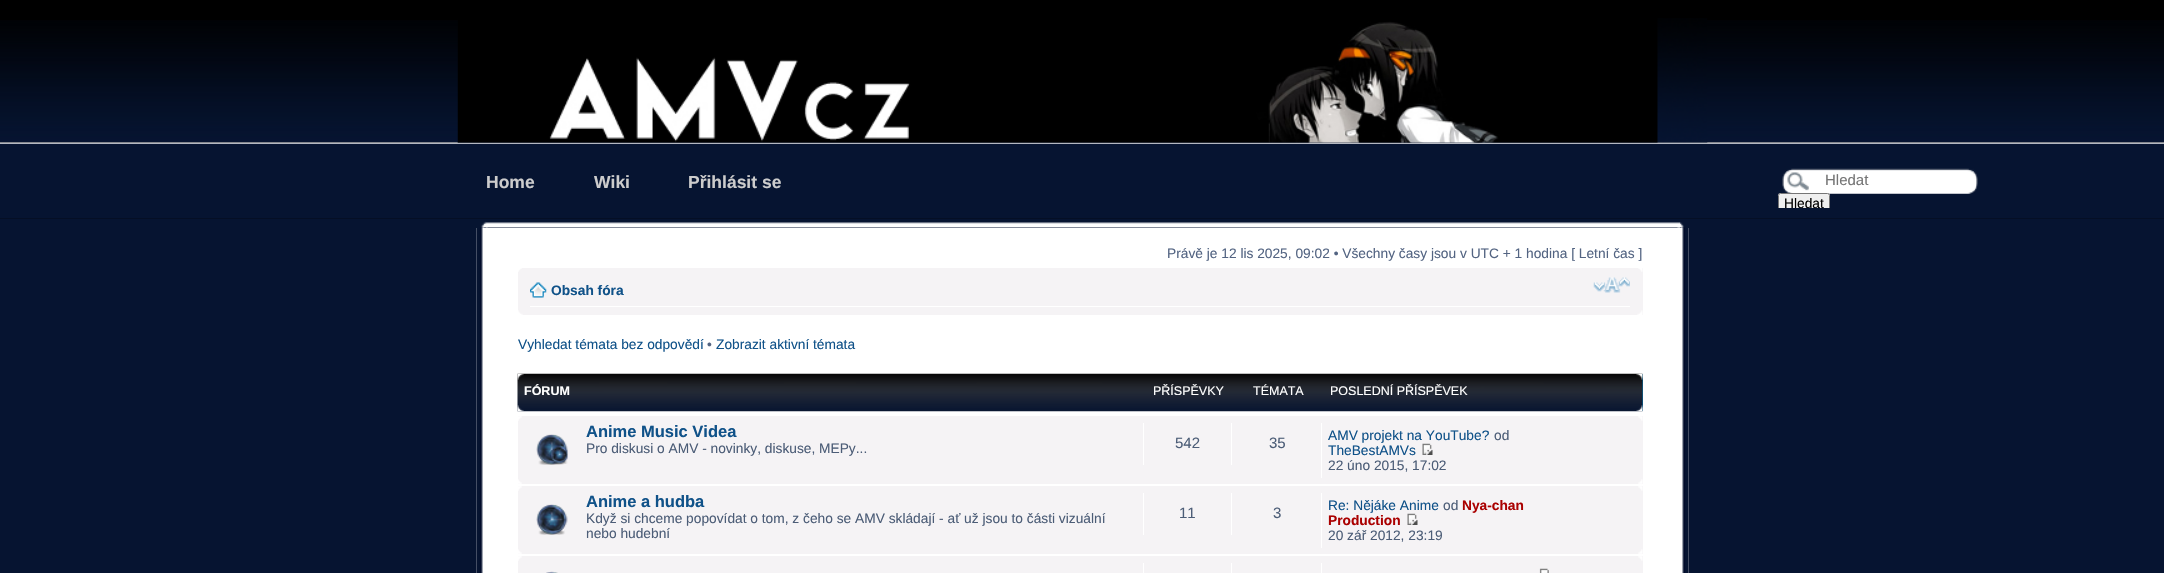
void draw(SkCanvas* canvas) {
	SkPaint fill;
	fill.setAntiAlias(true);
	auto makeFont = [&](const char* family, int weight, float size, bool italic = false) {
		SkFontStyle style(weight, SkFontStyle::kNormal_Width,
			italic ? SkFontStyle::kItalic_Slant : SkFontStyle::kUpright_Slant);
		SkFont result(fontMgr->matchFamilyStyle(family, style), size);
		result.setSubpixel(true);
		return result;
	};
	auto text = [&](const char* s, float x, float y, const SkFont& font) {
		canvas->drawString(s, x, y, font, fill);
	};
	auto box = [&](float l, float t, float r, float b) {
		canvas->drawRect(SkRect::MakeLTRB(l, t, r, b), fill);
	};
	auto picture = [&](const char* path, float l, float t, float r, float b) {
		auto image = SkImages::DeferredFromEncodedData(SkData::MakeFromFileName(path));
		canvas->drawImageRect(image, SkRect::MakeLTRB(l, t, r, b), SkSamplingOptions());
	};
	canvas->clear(0xFF000000);
	picture("image0.png", 0, 20, 2164, 143);
	picture("image4.png", 0, 142, 2164, 219);
	picture("image1.png", 457, 18, 1708, 143);
	picture("image2.png", 457, 142, 1708, 143);
	picture("image3.png", 457, 18, 1658, 143);
	picture("image5.png", 1782, 168, 1978, 194);
	fill.setColor(0xFFEFEFEF);
	canvas->drawPath(SkPathBuilder().moveTo(1780.5f, 193).lineTo(1827.5f, 193).cubicTo(1829, 193, 1830, 194, 1830, 195.5f).lineTo(1830, 208).lineTo(1778, 208).lineTo(1778, 195.5f).cubicTo(1778, 194, 1779, 193, 1780.5f, 193).close().detach(), fill);
	canvas->save();
	canvas->clipRect(SkRect::MakeLTRB(1778, 163, 2040, 208));
	fill.setStyle(SkPaint::kStroke_Style);
	fill.setStrokeWidth(1);
	fill.setColor(0xFF767676);
	canvas->drawRoundRect(SkRect::MakeLTRB(1778.5f, 193.5f, 1829.5f, 212.5f), 2, 2, fill);
	canvas->restore();
	fill.setStyle(SkPaint::kFill_Style);
	fill.setColor(0xFF061431);
	box(0, 219, 2164, 573);
	picture("image6.png", 1677, 221, 1684, 228);
	picture("image7.png", 481, 221, 488, 228);
	picture("image8.png", 486, 221, 1680, 228);
	fill.setColor(0xFFFFFFFF);
	box(476, 228, 1689, 573);
	picture("image9.png", 1681, 227, 1689, 573);
	picture("image10.png", 476, 227, 484, 573);
	fill.setColor(0xFFF5F3F5);
	box(518, 268, 1643, 315);
	picture("image11.png", 518, 268, 522, 272);
	picture("image12.png", 1638, 268, 1643, 272);
	fill.setColor(0xFFFFFFFF);
	box(530, 306, 1630, 307);
	picture("image13.png", 530, 282, 547, 298);
	picture("image14.png", 1593, 277, 1630, 293);
	picture("image15.png", 518, 310, 523, 315);
	picture("image16.png", 1637, 310, 1643, 315);
	fill.setColor(0xFF0076B1);
	box(1642, 374, 1643, 411);
	picture("image17.png", 517, 373, 1643, 412);
	picture("image18.png", 517, 373, 524, 380);
	picture("image19.png", 1636, 373, 1643, 380);
	picture("image20.png", 517, 405, 524, 412);
	picture("image21.png", 1636, 405, 1643, 412);
	fill.setColor(0xFFF5F3F5);
	box(518, 416, 1643, 484);
	picture("image22.png", 518, 416, 522, 421);
	picture("image23.png", 1638, 416, 1643, 421);
	picture("image24.png", 536, 434, 568, 465);
	fill.setColor(0xFFFFFFFF);
	box(1143, 423, 1144, 465);
	box(1231, 423, 1232, 465);
	box(1321, 423, 1322, 478);
	picture("image25.png", 1422, 443, 1433, 455);
	picture("image26.png", 518, 479, 522, 484);
	picture("image27.png", 1638, 479, 1643, 484);
	fill.setColor(0xFFF5F3F5);
	box(518, 486, 1643, 554);
	picture("image22.png", 518, 486, 522, 491);
	picture("image23.png", 1638, 486, 1643, 491);
	picture("image28.png", 536, 504, 568, 535);
	fill.setColor(0xFFFFFFFF);
	box(1143, 493, 1144, 535);
	box(1231, 493, 1232, 535);
	box(1321, 493, 1322, 548);
	picture("image25.png", 1407, 513, 1418, 525);
	picture("image26.png", 518, 549, 522, 554);
	picture("image27.png", 1638, 549, 1643, 554);
	fill.setColor(0xFFF5F3F5);
	box(518, 556, 1643, 573);
	picture("image22.png", 518, 556, 522, 561);
	picture("image23.png", 1638, 556, 1643, 561);
	picture("image29.png", 546, 571, 558, 573);
	fill.setColor(0xFFFFFFFF);
	box(1143, 563, 1144, 573);
	box(1231, 563, 1232, 573);
	box(1321, 563, 1322, 573);
	picture("image30.png", 1539, 568, 1549, 573);
	auto font1 = makeFont("Liberation Sans", 700, 17.5f);
	fill.setColor(0xFFCCCCCC);
	text("Home", 486, 188, font1);
	text("Wiki", 594, 188, font1);
	text("Přihlásit se", 688, 188, font1);
	auto font2 = makeFont("Liberation Sans", 400, 15);
	fill.setColor(0xFF757575);
	text("Hledat", 1825, 185, font2);
	canvas->save();
	canvas->clipRect(SkRect::MakeLTRB(1780, 195, 1828, 208));
	auto font3 = makeFont("Liberation Sans", 400, 13.75f);
	fill.setColor(0xFF000000);
	text("Hledat", 1784, 208, font3);
	canvas->restore();
	fill.setColor(0xFF536482);
	text("Právě je 12 lis 2025, 09:02 • Všechny časy jsou v UTC + 1 hodina [ Letní čas ]", 1167, 258, font3);
	auto font4 = makeFont("Liberation Sans", 700, 13.75f);
	fill.setColor(0xFF105289);
	text("Obsah fóra", 551, 295, font4);
	text("Vyhledat témata bez odpovědí", 518, 349, font3);
	fill.setColor(0xFF536482);
	text("•", 707, 349, font3);
	fill.setColor(0xFF105289);
	text("Zobrazit aktivní témata", 716, 349, font3);
	auto font5 = makeFont("Liberation Sans", 700, 12.5f);
	fill.setColor(0xFFFFFFFF);
	text("FÓRUM", 524, 395, font5);
	auto font6 = makeFont("Liberation Sans", 400, 12.5f);
	text("PŘÍSPĚVKY", 1153, 395, font6);
	text("TÉMATA", 1253, 395, font6);
	text("POSLEDNÍ PŘÍSPĚVEK", 1330, 395, font6);
	auto font7 = makeFont("Liberation Sans", 700, 16.5f);
	fill.setColor(0xFF105289);
	text("Anime Music Videa", 586, 437, font7);
	fill.setColor(0xFF4C5D77);
	text("Pro diskusi o AMV - novinky, diskuse, MEPy...", 586, 453, font3);
	text("542", 1175, 448, font2);
	text("35", 1269, 448, font2);
	fill.setColor(0xFF105289);
	text("AMV projekt na YouTube?", 1328, 440, font3);
	fill.setColor(0xFF4C5D77);
	text("od", 1494, 440, font3);
	fill.setColor(0xFF105289);
	text("TheBestAMVs", 1328, 455, font3);
	fill.setColor(0xFF4C5D77);
	text("22 úno 2015, 17:02", 1328, 470, font3);
	fill.setColor(0xFF105289);
	text("Anime a hudba", 586, 507, font7);
	fill.setColor(0xFF4C5D77);
	text("Když si chceme popovídat o tom, z čeho se AMV skládají - ať už jsou to části vizuální", 586, 523, font3);
	text("nebo hudební", 586, 538, font3);
	text("11", 1179, 518, font2);
	text("3", 1273, 518, font2);
	fill.setColor(0xFF105289);
	text("Re: Nějáke Anime", 1328, 510, font3);
	fill.setColor(0xFF4C5D77);
	text("od", 1443, 510, font3);
	fill.setColor(0xFFAA0000);
	text("Nya-chan", 1462, 510, font4);
	text("Production", 1328, 525, font4);
	fill.setColor(0xFF4C5D77);
	text("20 zář 2012, 23:19", 1328, 540, font3);
}
